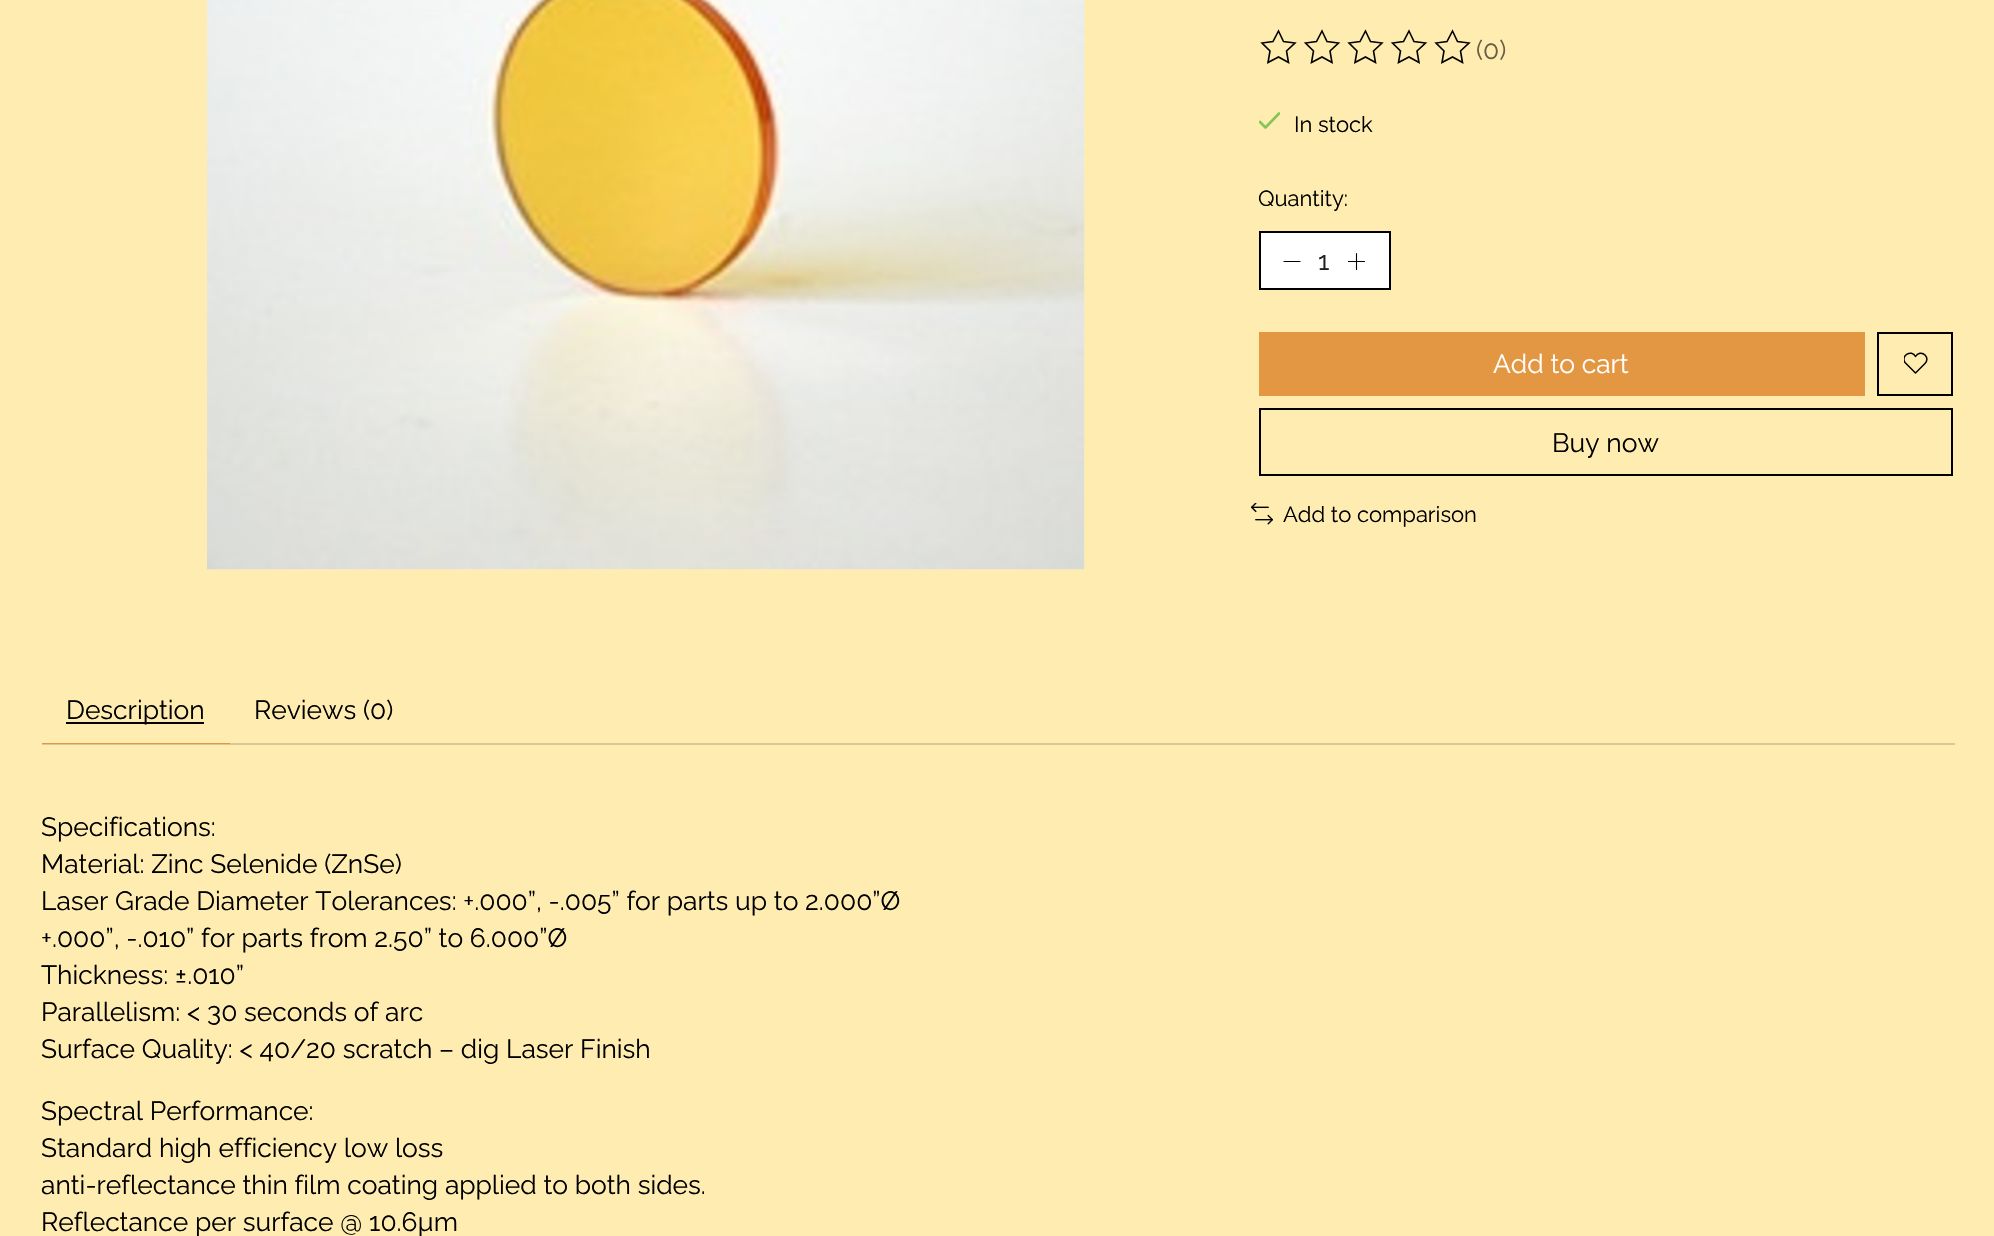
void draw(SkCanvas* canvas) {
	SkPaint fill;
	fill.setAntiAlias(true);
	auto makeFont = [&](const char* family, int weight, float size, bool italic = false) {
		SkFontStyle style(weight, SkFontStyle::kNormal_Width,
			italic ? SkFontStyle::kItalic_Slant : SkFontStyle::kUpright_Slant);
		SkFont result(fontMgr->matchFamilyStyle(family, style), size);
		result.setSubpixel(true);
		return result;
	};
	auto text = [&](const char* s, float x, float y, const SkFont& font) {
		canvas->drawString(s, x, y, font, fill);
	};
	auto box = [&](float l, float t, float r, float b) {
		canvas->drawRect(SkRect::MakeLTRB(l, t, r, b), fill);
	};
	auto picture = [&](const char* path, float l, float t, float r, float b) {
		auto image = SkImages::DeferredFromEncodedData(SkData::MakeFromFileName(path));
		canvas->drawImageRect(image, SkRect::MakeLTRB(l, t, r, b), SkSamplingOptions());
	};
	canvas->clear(0xFFFFECB1);
	picture("image0.png", 207, 0, 1085, 570);
	fill.setStyle(SkPaint::kStroke_Style);
	fill.setStrokeWidth(1.6f);
	fill.setColor(0xFF000000);
	canvas->drawPath(SkPathBuilder().moveTo(1278.5f, 31).lineTo(1283.5f, 41.5f).lineTo(1295, 43).lineTo(1286.5f, 51).lineTo(1288.5f, 62.5f).lineTo(1278.5f, 57).lineTo(1268, 62.5f).lineTo(1270, 51).lineTo(1262, 43).lineTo(1273, 41.5f).close().detach(), fill);
	canvas->drawPath(SkPathBuilder().moveTo(1322, 31).lineTo(1327, 41.5f).lineTo(1338.5f, 43).lineTo(1330, 51).lineTo(1332, 62.5f).lineTo(1322, 57).lineTo(1311.5f, 62.5f).lineTo(1313.5f, 51).lineTo(1305.5f, 43).lineTo(1316.5f, 41.5f).close().detach(), fill);
	canvas->drawPath(SkPathBuilder().moveTo(1365.5f, 31).lineTo(1370.5f, 41.5f).lineTo(1382, 43).lineTo(1373.5f, 51).lineTo(1375.5f, 62.5f).lineTo(1365.5f, 57).lineTo(1355, 62.5f).lineTo(1357, 51).lineTo(1349, 43).lineTo(1360, 41.5f).close().detach(), fill);
	canvas->drawPath(SkPathBuilder().moveTo(1409, 31).lineTo(1414, 41.5f).lineTo(1425.5f, 43).lineTo(1417, 51).lineTo(1419, 62.5f).lineTo(1409, 57).lineTo(1398.5f, 62.5f).lineTo(1400.5f, 51).lineTo(1392.5f, 43).lineTo(1403.5f, 41.5f).close().detach(), fill);
	canvas->drawPath(SkPathBuilder().moveTo(1452.5f, 31).lineTo(1457.5f, 41.5f).lineTo(1469, 43).lineTo(1460.5f, 51).lineTo(1462.5f, 62.5f).lineTo(1452.5f, 57).lineTo(1442, 62.5f).lineTo(1444, 51).lineTo(1436, 43).lineTo(1447, 41.5f).close().detach(), fill);
	canvas->save();
	canvas->clipRect(SkRect::MakeLTRB(1259, 110, 1280, 132));
	fill.setStrokeWidth(2.7f);
	fill.setStrokeCap(SkPaint::kRound_Cap);
	fill.setStrokeJoin(SkPaint::kRound_Join);
	fill.setColor(0xFF88C559);
	canvas->drawPath(SkPathBuilder().moveTo(1260, 122).lineTo(1265.5f, 127.5f).lineTo(1279, 113.5f).detach(), fill);
	canvas->restore();
	fill.setStyle(SkPaint::kFill_Style);
	fill.setColor(0xFFFFFFFF);
	canvas->drawRect(SkRect::MakeLTRB(1260, 232, 1390, 289), fill);
	fill.setStyle(SkPaint::kStroke_Style);
	fill.setStrokeWidth(2);
	fill.setStrokeCap(SkPaint::kButt_Cap);
	fill.setStrokeJoin(SkPaint::kMiter_Join);
	fill.setColor(0xFF000000);
	canvas->drawRect(SkRect::MakeLTRB(1260, 232, 1390, 289), fill);
	fill.setStrokeWidth(1.1f);
	fill.setStrokeCap(SkPaint::kRound_Cap);
	fill.setStrokeJoin(SkPaint::kRound_Join);
	canvas->drawPath(SkPathBuilder().moveTo(1284, 261.5f).lineTo(1300, 261.5f).detach(), fill);
	canvas->drawPath(SkPathBuilder().moveTo(1356.5f, 253.5f).lineTo(1356.5f, 269.5f).moveTo(1348.5f, 261.5f).lineTo(1364.5f, 261.5f).detach(), fill);
	fill.setStyle(SkPaint::kFill_Style);
	fill.setColor(0xFFE49743);
	box(1259, 332, 1865, 396);
	fill.setStyle(SkPaint::kStroke_Style);
	fill.setStrokeWidth(2);
	fill.setStrokeCap(SkPaint::kButt_Cap);
	fill.setStrokeJoin(SkPaint::kMiter_Join);
	fill.setColor(0xFF000000);
	canvas->drawRect(SkRect::MakeLTRB(1878, 333, 1952, 395), fill);
	canvas->save();
	canvas->clipRect(SkRect::MakeLTRB(1904, 351, 1928, 375));
	fill.setStrokeWidth(1.5f);
	fill.setStrokeCap(SkPaint::kRound_Cap);
	fill.setStrokeJoin(SkPaint::kRound_Join);
	canvas->drawPath(SkPathBuilder().moveTo(1925, 355).cubicTo(1922, 352, 1917.5f, 353, 1915.5f, 356.5f).cubicTo(1911.5f, 349, 1900.5f, 355.5f, 1905, 362.5f).lineTo(1915.5f, 373).lineTo(1925, 363.5f).cubicTo(1927.5f, 361, 1927.5f, 357.5f, 1925, 355).close().detach(), fill);
	canvas->restore();
	fill.setStrokeWidth(2);
	fill.setStrokeCap(SkPaint::kButt_Cap);
	fill.setStrokeJoin(SkPaint::kMiter_Join);
	canvas->drawRect(SkRect::MakeLTRB(1260, 409, 1952, 475), fill);
	picture("image1.png", 1251, 503, 1273, 525);
	fill.setStyle(SkPaint::kFill_Style);
	fill.setColor(0xFFD9C996);
	box(42, 743, 1955, 745);
	fill.setColor(0xFFE49743);
	box(42, 743, 230, 744);
	fill.setColor(0xFF000000);
	box(66, 722, 204, 724);
	auto font1 = makeFont("Raleway", 400, 26.4f);
	fill.setColor(0xFF665E47);
	text("(0)", 1476, 59, font1);
	auto font2 = makeFont("Raleway", 400, 22);
	fill.setColor(0xFF000000);
	text("In stock", 1294, 132, font2);
	text("Quantity:", 1258, 206, font2);
	fill.setColor(0xFF1C1C21);
	text("1", 1318, 270, font1);
	fill.setColor(0xFFFFFFFF);
	text("Add to cart", 1493, 373, font1);
	fill.setColor(0xFF000000);
	text("Buy now", 1552, 452, font1);
	text("Add to comparison", 1283, 522, font2);
	text("Description", 66, 719, font1);
	text("Reviews (0)", 254, 719, font1);
	text("Specifications:", 41, 836, font1);
	text("Material: Zinc Selenide (ZnSe)", 41, 873, font1);
	text("Laser Grade Diameter Tolerances: +.000”, -.005” for parts up to 2.000”Ø", 41, 910, font1);
	text("+.000”, -.010” for parts from 2.50” to 6.000”Ø", 41, 947, font1);
	text("Thickness: ±.010”", 41, 984, font1);
	text("Parallelism: < 30 seconds of arc", 41, 1021, font1);
	text("Surface Quality: < 40/20 scratch – dig Laser Finish", 41, 1058, font1);
	text("Spectral Performance:", 41, 1120, font1);
	text("Standard high efficiency low loss", 41, 1157, font1);
	text("anti-reflectance thin film coating applied to both sides.", 41, 1194, font1);
	text("Reflectance per surface @ 10.6µm", 41, 1231, font1);
}
